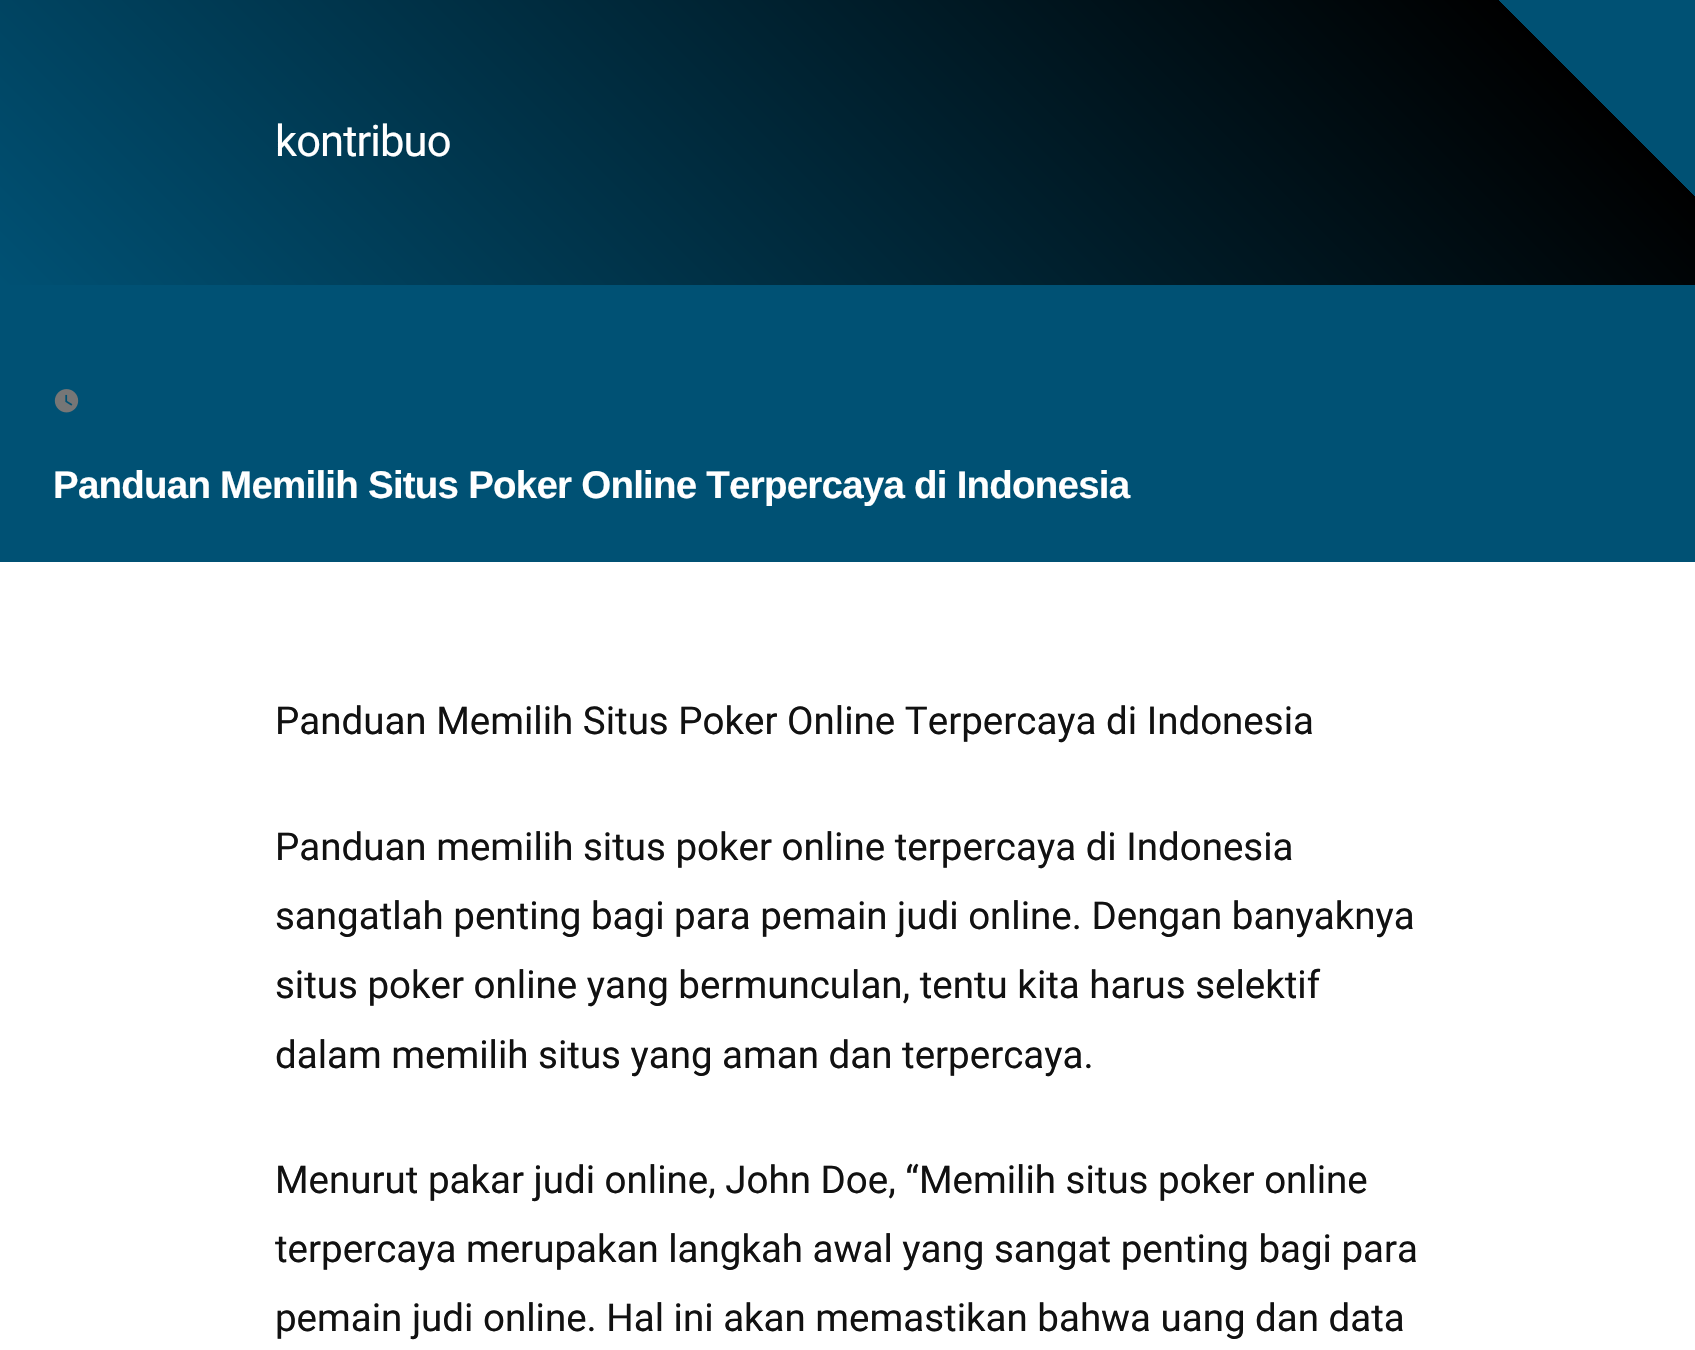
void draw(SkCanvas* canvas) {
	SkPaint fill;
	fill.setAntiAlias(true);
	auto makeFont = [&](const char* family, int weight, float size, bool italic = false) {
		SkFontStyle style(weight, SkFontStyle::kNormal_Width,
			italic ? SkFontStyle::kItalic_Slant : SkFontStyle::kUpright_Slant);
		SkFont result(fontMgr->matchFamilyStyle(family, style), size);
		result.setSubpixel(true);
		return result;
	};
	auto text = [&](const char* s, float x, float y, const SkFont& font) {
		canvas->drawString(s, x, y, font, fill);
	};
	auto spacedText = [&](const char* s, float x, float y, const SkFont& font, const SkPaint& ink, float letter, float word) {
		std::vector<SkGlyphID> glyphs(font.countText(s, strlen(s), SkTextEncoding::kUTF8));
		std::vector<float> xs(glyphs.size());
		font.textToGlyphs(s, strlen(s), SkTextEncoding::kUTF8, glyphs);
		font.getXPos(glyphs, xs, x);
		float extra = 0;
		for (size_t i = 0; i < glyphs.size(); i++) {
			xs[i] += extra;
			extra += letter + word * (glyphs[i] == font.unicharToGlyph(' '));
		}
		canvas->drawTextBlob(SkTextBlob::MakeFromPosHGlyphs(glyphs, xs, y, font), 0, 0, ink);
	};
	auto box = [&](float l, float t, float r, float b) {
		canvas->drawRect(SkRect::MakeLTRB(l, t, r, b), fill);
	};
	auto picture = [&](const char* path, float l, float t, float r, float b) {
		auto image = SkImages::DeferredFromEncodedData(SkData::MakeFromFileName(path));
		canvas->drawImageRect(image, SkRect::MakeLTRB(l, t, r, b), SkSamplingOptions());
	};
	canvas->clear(0xFFFFFFFF);
	{
		const SkColor colors[] = {0xFF005174, 0xFF000000, 0xFF005174};
		const float stops[] = {0, 0.9f, 0.9f};
		const SkPoint ends[] = {{353, 638}, {1343, -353}};
		fill.setShader(SkGradientShader::MakeLinear(ends, colors, stops, 3, SkTileMode::kClamp));
		fill.setAlpha(255);
	}
	box(0, 0, 1695, 285);
	fill.setShader(nullptr);
	fill.setColor(0xFF005174);
	box(0, 285, 1695, 562);
	picture("image0.png", 54, 389, 79, 413);
	auto font1 = makeFont("Roboto", 400, 43.5f);
	fill.setColor(0xFFFFFFFF);
	spacedText("kontribuo", 275, 156, font1, fill, -0.9f, 0);
	auto font2 = makeFont("Liberation Sans", 700, 38.5f);
	spacedText("Panduan Memilih Situs Poker Online Terpercaya di Indonesia", 53, 498, font2, fill, -0.77f, 0);
	auto font3 = makeFont("Roboto", 400, 38.5f);
	fill.setColor(0xFF111111);
	text("Panduan Memilih Situs Poker Online Terpercaya di Indonesia", 275, 734, font3);
	text("Panduan memilih situs poker online terpercaya di Indonesia", 275, 860, font3);
	text("sangatlah penting bagi para pemain judi online. Dengan banyaknya", 275, 929, font3);
	text("situs poker online yang bermunculan, tentu kita harus selektif", 275, 998, font3);
	text("dalam memilih situs yang aman dan terpercaya.", 275, 1068, font3);
	text("Menurut pakar judi online, John Doe, “Memilih situs poker online", 275, 1193, font3);
	text("terpercaya merupakan langkah awal yang sangat penting bagi para", 275, 1262, font3);
	text("pemain judi online. Hal ini akan memastikan bahwa uang dan data", 275, 1331, font3);
}
